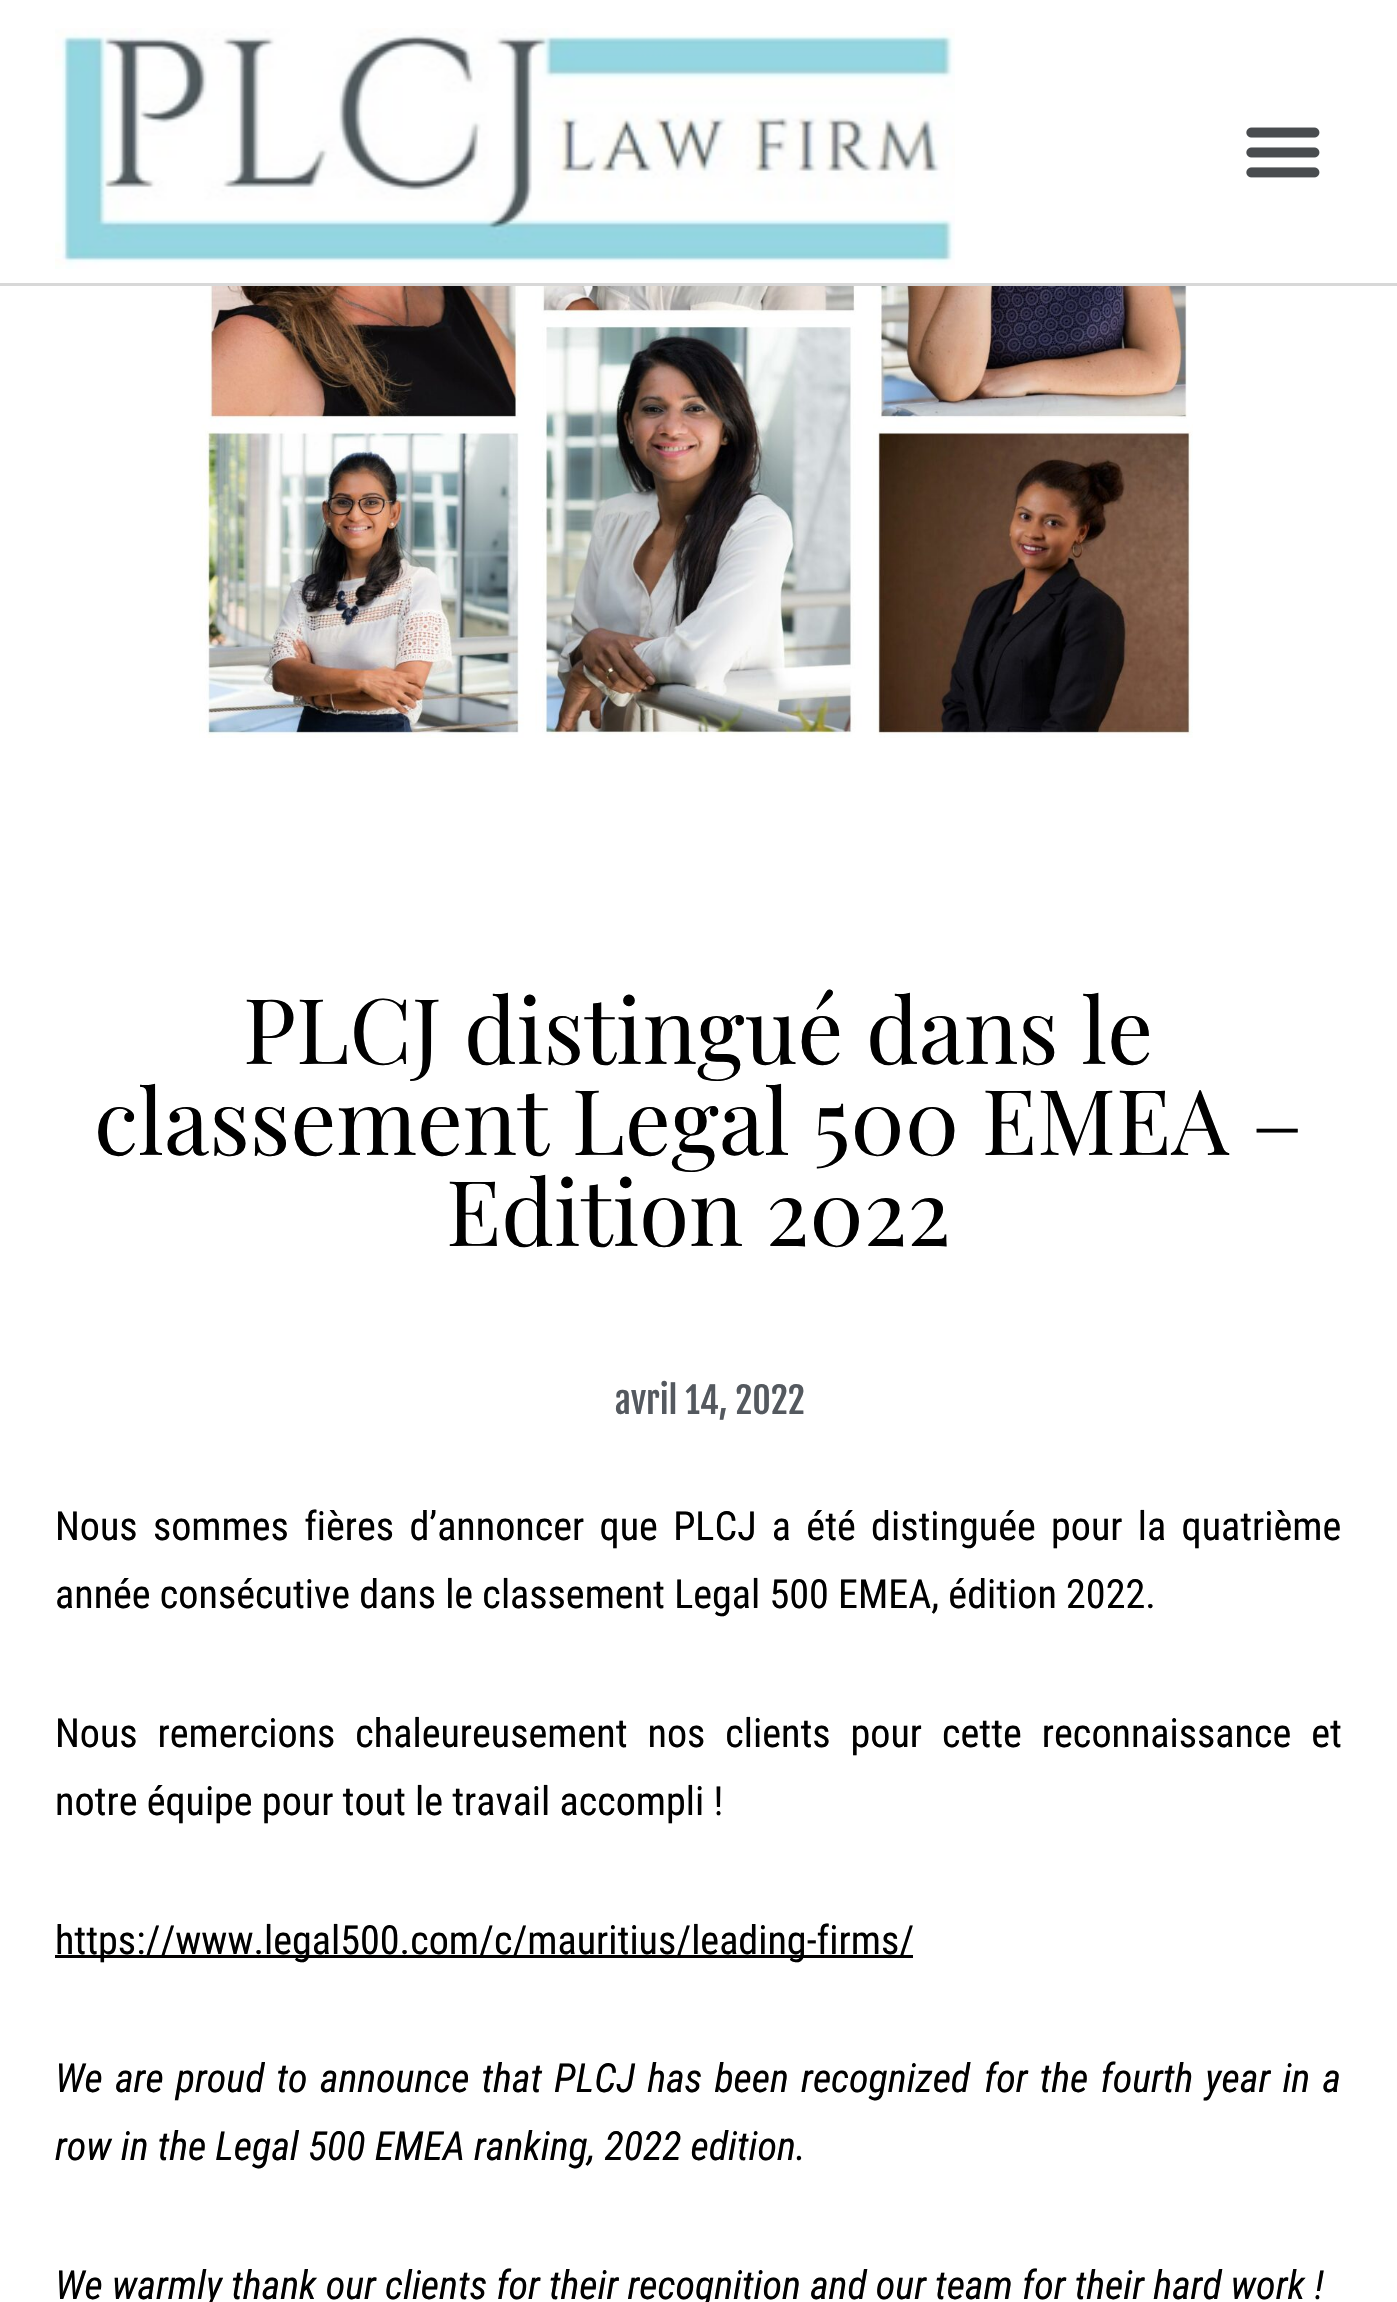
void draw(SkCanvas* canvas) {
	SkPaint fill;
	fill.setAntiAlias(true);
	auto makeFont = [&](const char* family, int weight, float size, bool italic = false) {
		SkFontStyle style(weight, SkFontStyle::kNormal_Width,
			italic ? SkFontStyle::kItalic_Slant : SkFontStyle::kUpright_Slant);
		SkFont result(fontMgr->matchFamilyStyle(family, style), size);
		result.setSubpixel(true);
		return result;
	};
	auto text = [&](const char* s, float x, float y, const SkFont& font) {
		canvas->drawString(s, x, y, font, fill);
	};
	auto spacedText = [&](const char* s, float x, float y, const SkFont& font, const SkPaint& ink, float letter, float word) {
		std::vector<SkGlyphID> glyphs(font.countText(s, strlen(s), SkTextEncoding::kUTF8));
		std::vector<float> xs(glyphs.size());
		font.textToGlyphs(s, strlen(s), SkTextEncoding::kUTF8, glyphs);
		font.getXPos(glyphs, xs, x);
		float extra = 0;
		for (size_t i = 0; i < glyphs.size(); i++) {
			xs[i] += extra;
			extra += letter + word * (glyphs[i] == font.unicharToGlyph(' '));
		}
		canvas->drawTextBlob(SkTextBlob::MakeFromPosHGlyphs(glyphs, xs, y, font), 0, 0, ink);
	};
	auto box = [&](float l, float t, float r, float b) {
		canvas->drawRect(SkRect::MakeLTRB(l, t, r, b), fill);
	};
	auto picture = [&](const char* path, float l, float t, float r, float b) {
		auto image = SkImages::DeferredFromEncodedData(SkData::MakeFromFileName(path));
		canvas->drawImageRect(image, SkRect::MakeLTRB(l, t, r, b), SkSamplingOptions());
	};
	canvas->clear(0xFFFFFFFF);
	fill.setColor(0xFFD8D8D8);
	box(0, 283, 1397, 286);
	picture("image0.png", 55, 28, 955, 269);
	picture("image1.png", 1246, 127, 1320, 178);
	picture("image2.png", 199, 286, 1193, 738);
	fill.setColor(0xFF020101);
	box(55, 1955, 913, 1958);
	auto font1 = makeFont("Playfair Display", 400, 90.75f);
	fill.setColor(0xFF000000);
	text("PLCJ distingué dans le", 243, 1064, font1);
	text("classement Legal 500 EMEA –", 94, 1155, font1);
	text("Edition 2022", 446, 1246, font1);
	auto font2 = makeFont("Fjalla One", 400, 35.75f);
	fill.setColor(0xFF54595F);
	text("avril 14, 2022", 615, 1414, font2);
	auto font3 = makeFont("Roboto Condensed", 400, 40.1f);
	fill.setColor(0xFF000000);
	spacedText("Nous sommes fières d’annoncer que PLCJ a été distinguée pour la quatrième", 55, 1540, font3, fill, 0, 6.1f);
	text("année consécutive dans le classement Legal 500 EMEA, édition 2022.", 55, 1608, font3);
	spacedText("Nous remercions chaleureusement nos clients pour cette reconnaissance et", 55, 1747, font3, fill, 0, 10.75f);
	text("notre équipe pour tout le travail accompli !", 55, 1815, font3);
	text("https://www.legal500.com/c/mauritius/leading-firms/", 55, 1954, font3);
	auto font4 = makeFont("Roboto Condensed", 400, 40.1f, true);
	spacedText("We are proud to announce that PLCJ has been recognized", 55, 2092, font4, fill, 0, 3);
	spacedText("for the fourth year in a", 984, 2092, font4, fill, 0, 3);
	text("row in the Legal 500 EMEA", 55, 2160, font4);
	text("ranking, 2022 edition.", 474, 2160, font4);
	text("We warmly thank our clients for their recognition and our team for their hard work !", 55, 2299, font4);
}
